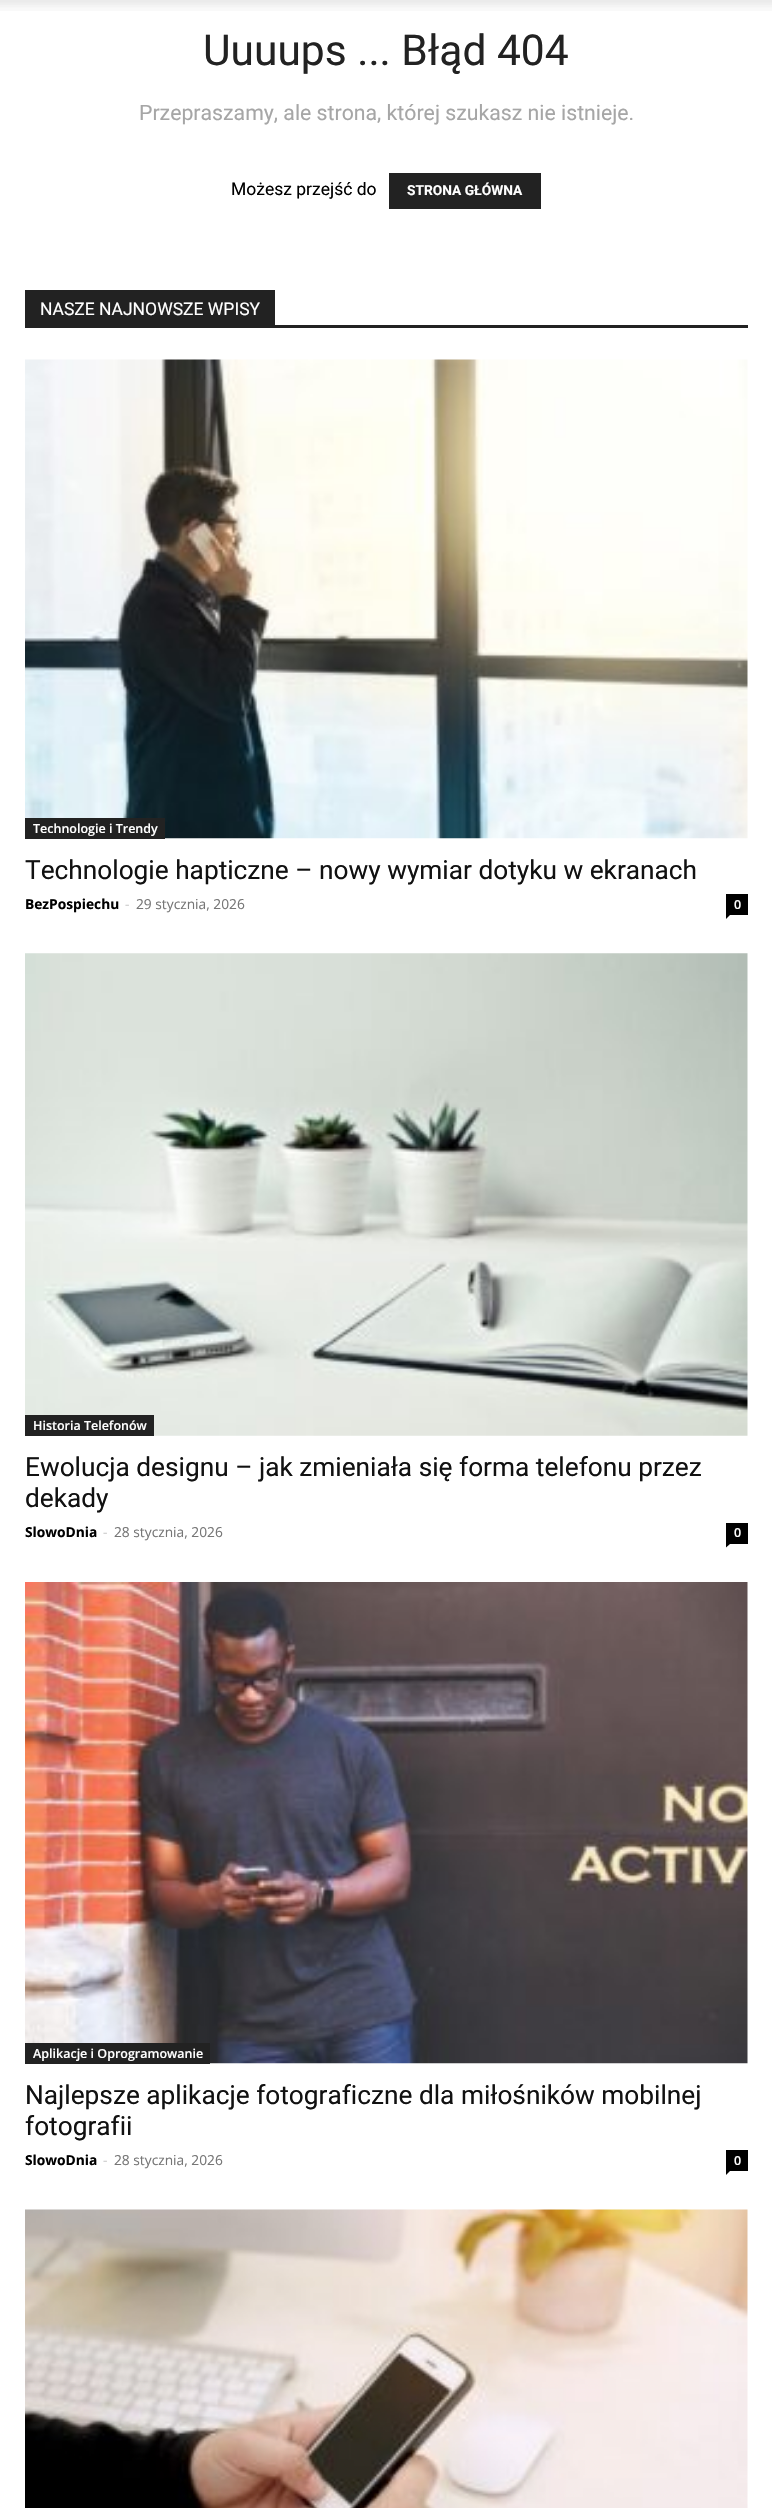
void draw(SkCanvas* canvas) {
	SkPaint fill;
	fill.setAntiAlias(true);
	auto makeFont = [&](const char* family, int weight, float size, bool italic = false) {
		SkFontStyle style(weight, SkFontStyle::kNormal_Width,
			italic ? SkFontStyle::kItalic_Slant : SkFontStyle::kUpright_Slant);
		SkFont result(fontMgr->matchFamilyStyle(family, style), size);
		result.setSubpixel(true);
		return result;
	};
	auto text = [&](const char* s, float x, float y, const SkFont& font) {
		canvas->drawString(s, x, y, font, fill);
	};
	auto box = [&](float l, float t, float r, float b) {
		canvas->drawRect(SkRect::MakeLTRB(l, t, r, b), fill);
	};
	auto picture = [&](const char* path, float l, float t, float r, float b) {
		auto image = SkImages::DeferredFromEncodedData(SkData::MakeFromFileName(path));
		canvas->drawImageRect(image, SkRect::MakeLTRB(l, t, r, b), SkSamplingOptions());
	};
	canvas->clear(0xFFFFFFFF);
	picture("image0.png", 0, 0, 772, 11);
	fill.setColor(0xFF222222);
	box(389, 173, 541, 209);
	box(25, 325, 748, 328);
	box(25, 290, 275, 325);
	picture("image1.png", 25, 359, 748, 839);
	box(25, 818, 165, 839);
	fill.setColor(0xFF000000);
	box(726, 894, 748, 915);
	canvas->drawPath(SkPathBuilder().moveTo(726, 915).lineTo(730, 915).lineTo(726, 919).close().detach(), fill);
	picture("image2.png", 25, 953, 748, 1436);
	fill.setColor(0xFF222222);
	box(25, 1415, 154, 1436);
	fill.setColor(0xFF000000);
	box(726, 1523, 748, 1544);
	canvas->drawPath(SkPathBuilder().moveTo(726, 1544).lineTo(730, 1544).lineTo(726, 1547.5f).close().detach(), fill);
	picture("image3.png", 25, 1582, 748, 2064);
	fill.setColor(0xFF222222);
	box(25, 2043, 210, 2064);
	fill.setColor(0xFF000000);
	box(726, 2150, 748, 2171);
	canvas->drawPath(SkPathBuilder().moveTo(726, 2171).lineTo(730, 2171).lineTo(726, 2175).close().detach(), fill);
	picture("image4.png", 25, 2209, 748, 2508);
	auto font1 = makeFont("Roboto", 400, 42.5f);
	fill.setColor(0xFF222222);
	text("Uuuups ... Błąd 404", 203, 65, font1);
	auto font2 = makeFont("Roboto", 400, 21.25f);
	fill.setColor(0xFFA6A6A6);
	text("Przepraszamy, ale strona, której szukasz nie istnieje.", 139, 120, font2);
	auto font3 = makeFont("Roboto", 400, 17.5f);
	fill.setColor(0xFF000000);
	text("Możesz przejść do", 231, 195, font3);
	auto font4 = makeFont("Roboto", 700, 13.75f);
	fill.setColor(0xFFFFFFFF);
	text("STRONA GŁÓWNA", 407, 195, font4);
	text("NASZE NAJNOWSZE WPISY", 40, 315, font3);
	auto font5 = makeFont("Open Sans", 600, 12.5f);
	text("Technologie i Trendy", 33, 833, font5);
	auto font6 = makeFont("Roboto", 400, 26.25f);
	fill.setColor(0xFF111111);
	text("Technologie hapticzne – nowy wymiar dotyku w ekranach", 25, 879, font6);
	auto font7 = makeFont("Open Sans", 700, 13.75f);
	fill.setColor(0xFF000000);
	text("BezPospiechu", 25, 909, font7);
	auto font8 = makeFont("Open Sans", 400, 13.75f);
	fill.setColor(0xFFCCCCCC);
	text("-", 125, 909, font8);
	fill.setColor(0xFF767676);
	text("29 stycznia, 2026", 136, 909, font8);
	fill.setColor(0xFFFFFFFF);
	text("0", 734, 909, font5);
	text("Historia Telefonów", 33, 1430, font5);
	fill.setColor(0xFF111111);
	text("Ewolucja designu – jak zmieniała się forma telefonu przez", 25, 1476, font6);
	text("dekady", 25, 1507, font6);
	fill.setColor(0xFF000000);
	text("SlowoDnia", 25, 1537, font7);
	fill.setColor(0xFFCCCCCC);
	text("-", 103, 1537, font8);
	fill.setColor(0xFF767676);
	text("28 stycznia, 2026", 114, 1537, font8);
	fill.setColor(0xFFFFFFFF);
	text("0", 734, 1537, font5);
	text("Aplikacje i Oprogramowanie", 33, 2058, font5);
	fill.setColor(0xFF111111);
	text("Najlepsze aplikacje fotograficzne dla miłośników mobilnej", 25, 2104, font6);
	text("fotografii", 25, 2135, font6);
	fill.setColor(0xFF000000);
	text("SlowoDnia", 25, 2165, font7);
	fill.setColor(0xFFCCCCCC);
	text("-", 103, 2165, font8);
	fill.setColor(0xFF767676);
	text("28 stycznia, 2026", 114, 2165, font8);
	fill.setColor(0xFFFFFFFF);
	text("0", 734, 2165, font5);
}
